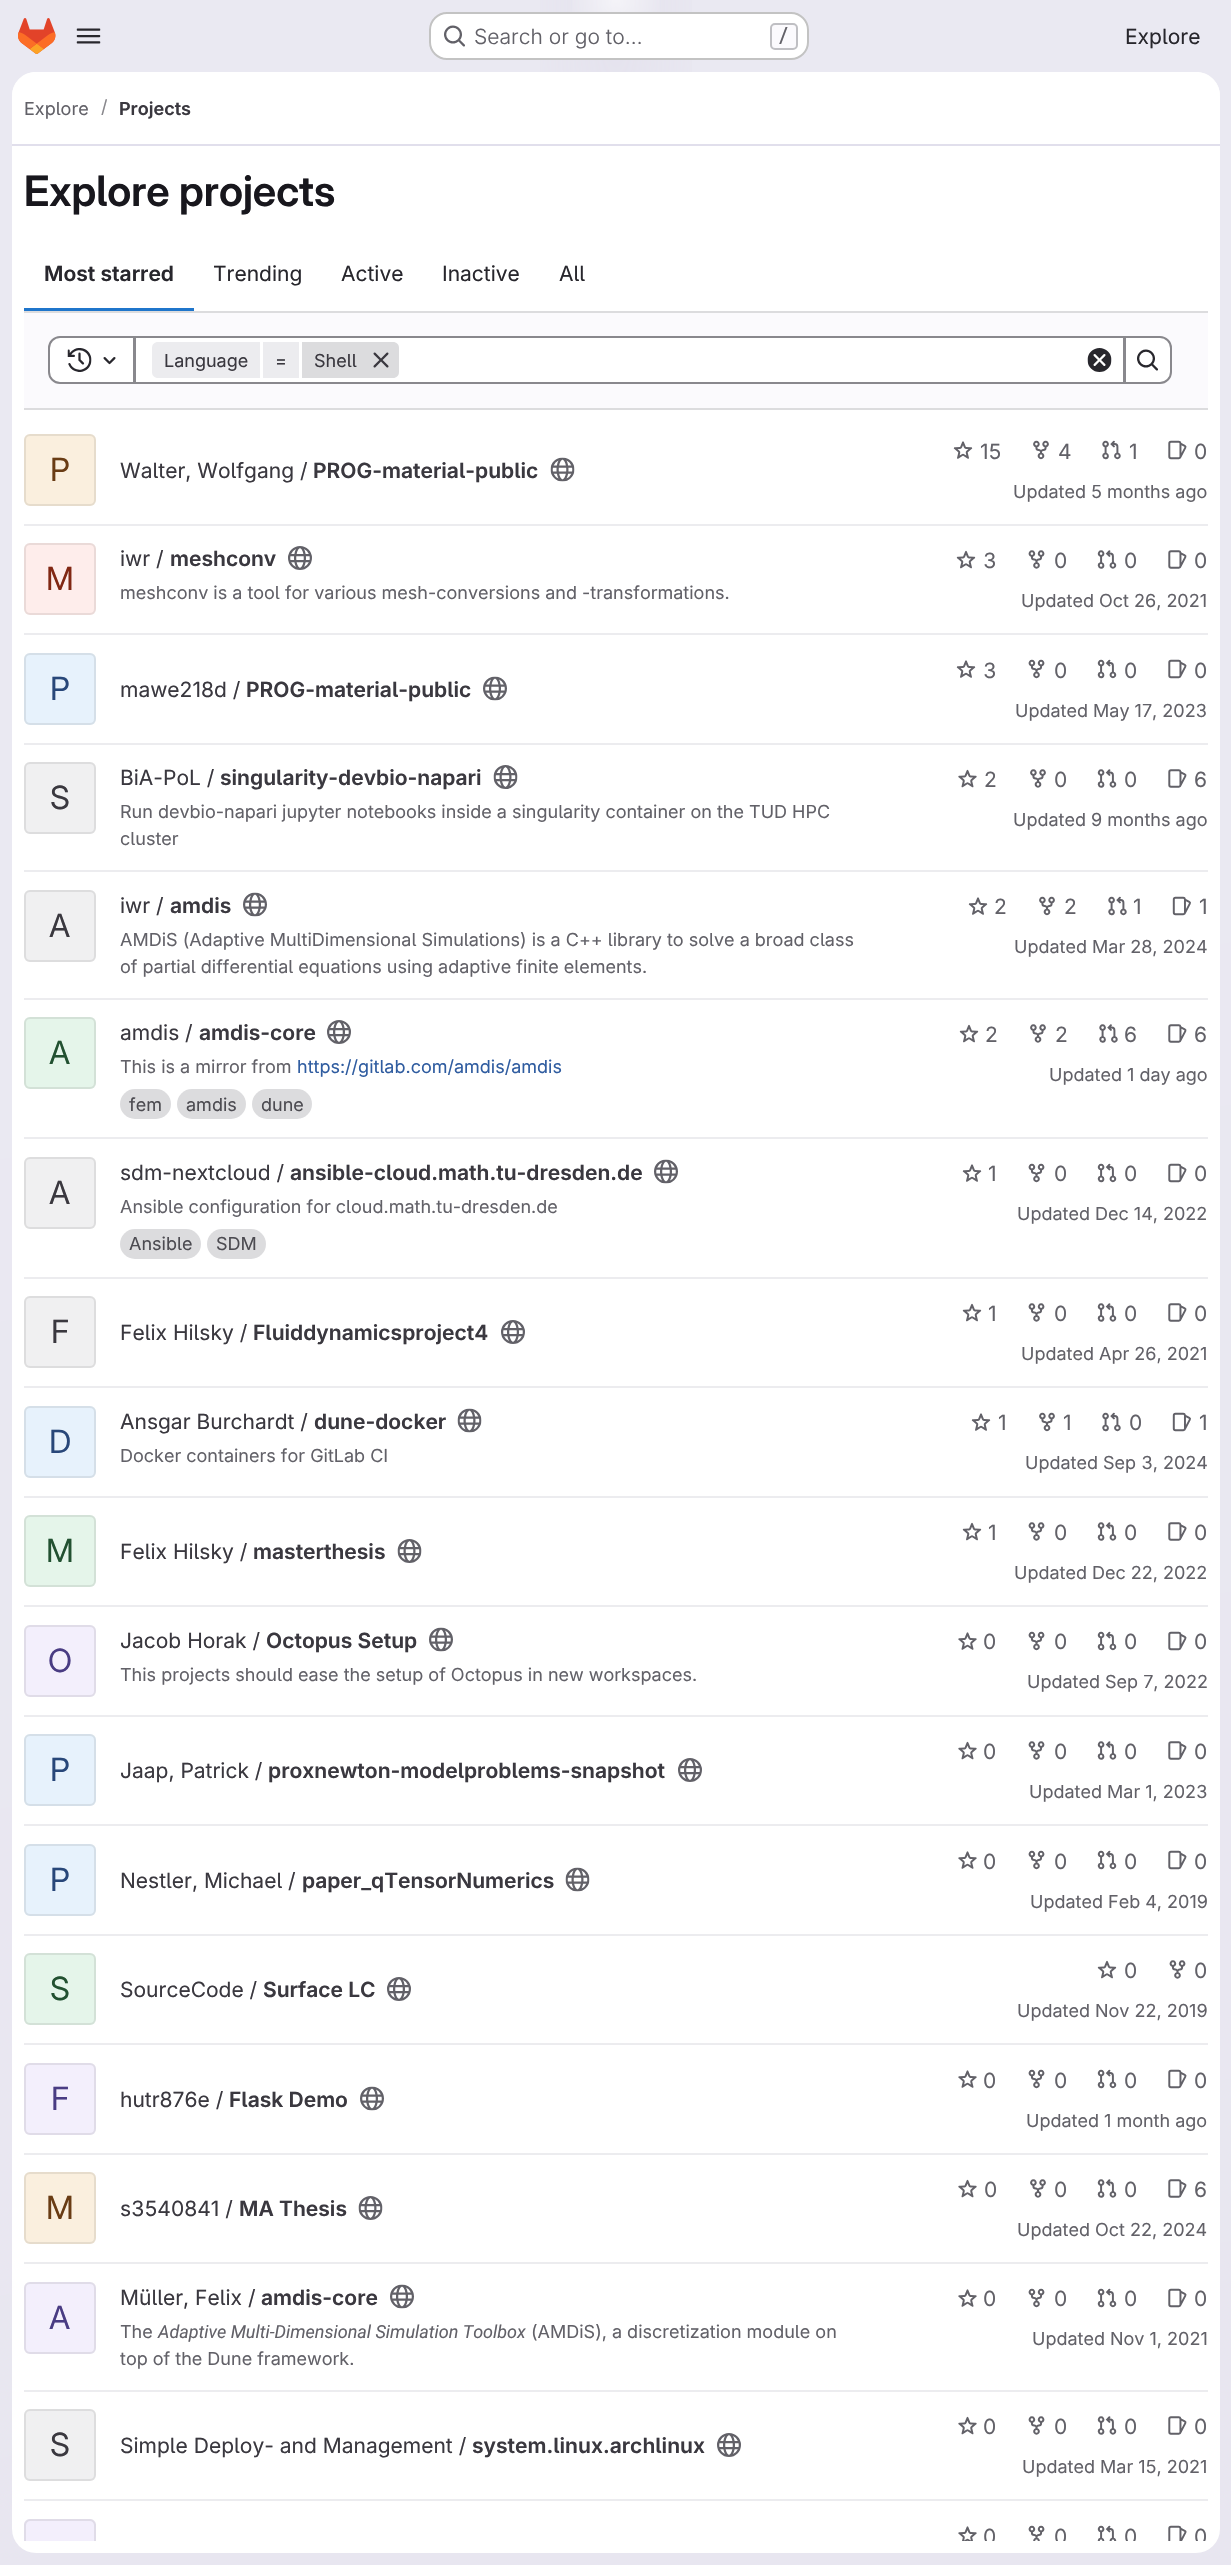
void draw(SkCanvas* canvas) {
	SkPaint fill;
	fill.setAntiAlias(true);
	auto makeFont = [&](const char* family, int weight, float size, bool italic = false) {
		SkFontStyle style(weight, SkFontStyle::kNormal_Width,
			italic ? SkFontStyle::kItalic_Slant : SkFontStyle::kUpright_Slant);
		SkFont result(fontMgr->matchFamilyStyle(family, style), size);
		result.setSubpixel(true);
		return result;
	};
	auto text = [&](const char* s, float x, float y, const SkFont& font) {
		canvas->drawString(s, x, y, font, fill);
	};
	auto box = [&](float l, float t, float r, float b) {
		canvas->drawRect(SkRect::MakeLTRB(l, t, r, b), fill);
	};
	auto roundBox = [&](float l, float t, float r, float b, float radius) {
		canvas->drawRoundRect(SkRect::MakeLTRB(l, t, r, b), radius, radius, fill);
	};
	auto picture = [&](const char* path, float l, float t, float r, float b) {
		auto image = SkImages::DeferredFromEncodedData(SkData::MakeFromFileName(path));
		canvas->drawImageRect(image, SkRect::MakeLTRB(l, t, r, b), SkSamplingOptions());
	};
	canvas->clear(0xFFFFFFFF);
	{
		const SkColor colors[] = {0xFFE8E6F0, 0xFFEAE9F2};
		const float stops[] = {0, 0.7f};
		const SkPoint ends[] = {{854, 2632}, {378, -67}};
		fill.setShader(SkGradientShader::MakeLinear(ends, colors, stops, 2, SkTileMode::kClamp));
		fill.setAlpha(255);
	}
	box(0, 0, 1231, 2565);
	{
		const SkColor colors[] = {0xFFE4E2ED, 0x00E4E2ED};
		const float stops[] = {0, 0.17f};
		SkMatrix m = SkMatrix::Translate(616, 0).preScale(616, 2565);
		fill.setShader(SkGradientShader::MakeRadial({0, 0}, 1, colors, stops, 2, SkTileMode::kClamp, 0, &m));
		fill.setAlpha(255);
	}
	box(540, 0, 692, 72);
	{
		const SkColor colors[] = {0xFFE4E2EC, 0x00E4E2EC};
		const float stops[] = {0, 0.12f};
		SkMatrix m = SkMatrix::Translate(616, 0).preScale(616, 2565);
		fill.setShader(SkGradientShader::MakeRadial({0, 0}, 1, colors, stops, 2, SkTileMode::kClamp, 0, &m));
		fill.setAlpha(255);
	}
	box(587, 13, 645, 57);
	{
		const SkColor colors[] = {0x99FFFFFF, 0x00FFFFFF};
		const float stops[] = {0, 0.02f};
		fill.setShader(SkGradientShader::MakeRadial({616, 0}, 2638, colors, stops, 2, SkTileMode::kClamp));
		fill.setAlpha(255);
	}
	box(572, 0, 660, 12);
	picture("image0.png", 18, 18, 56, 54);
	picture("image1.png", 76, 28, 101, 44);
	fill.setShader(nullptr);
	fill.setColor(0xFFFFFFFF);
	roundBox(429, 12, 809, 60, 18);
	fill.setStyle(SkPaint::kStroke_Style);
	fill.setStrokeWidth(2);
	fill.setColor(0x3D050506);
	canvas->drawRoundRect(SkRect::MakeLTRB(430, 13, 808, 59), 17, 17, fill);
	picture("image2.png", 444, 25, 465, 47);
	fill.setStyle(SkPaint::kFill_Style);
	fill.setColor(0xFFFBFAFD);
	canvas->drawRoundRect(SkRect::MakeLTRB(771, 24, 797, 49), 4, 4, fill);
	fill.setStyle(SkPaint::kStroke_Style);
	fill.setColor(0xFFBFBFC3);
	canvas->drawRoundRect(SkRect::MakeLTRB(771, 24, 797, 49), 4, 4, fill);
	fill.setStyle(SkPaint::kFill_Style);
	fill.setColor(0xFFFFFFFF);
	roundBox(12, 72, 1220, 2553, 24);
	canvas->drawPath(SkPathBuilder().moveTo(36, 72).lineTo(1196, 72).cubicTo(1209.5f, 72, 1220, 82.5f, 1220, 96).lineTo(1220, 146).lineTo(12, 146).lineTo(12, 96).cubicTo(12, 82.5f, 22.5f, 72, 36, 72).close().detach(), fill);
	fill.setColor(0xFFE1DFEC);
	box(12, 144, 1220, 146);
	fill.setColor(0xFF1F75CB);
	box(24, 308, 194, 311);
	fill.setColor(0xFFFBFAFD);
	box(24, 313, 1208, 408);
	fill.setColor(0xFFDCDCDE);
	box(24, 311, 1208, 313);
	box(24, 408, 1208, 410);
	fill.setColor(0xFFFFFFFF);
	canvas->drawRect(SkRect::MakeLTRB(135, 337, 1124, 383), fill);
	fill.setStyle(SkPaint::kStroke_Style);
	fill.setColor(0xFF89888D);
	canvas->drawRect(SkRect::MakeLTRB(135, 337, 1124, 383), fill);
	fill.setStyle(SkPaint::kFill_Style);
	fill.setColor(0xFFFFFFFF);
	canvas->drawPath(SkPathBuilder().moveTo(60, 337).lineTo(134, 337).lineTo(134, 383).lineTo(60, 383).cubicTo(54, 383, 49, 378, 49, 372).lineTo(49, 348).cubicTo(49, 342, 54, 337, 60, 337).close().detach(), fill);
	fill.setStyle(SkPaint::kStroke_Style);
	fill.setColor(0xFF89888D);
	canvas->drawPath(SkPathBuilder().moveTo(60, 337).lineTo(134, 337).lineTo(134, 383).lineTo(60, 383).cubicTo(54, 383, 49, 378, 49, 372).lineTo(49, 348).cubicTo(49, 342, 54, 337, 60, 337).close().detach(), fill);
	picture("image3.png", 67, 348, 92, 372);
	picture("image4.png", 103, 357, 116, 365);
	fill.setStyle(SkPaint::kFill_Style);
	fill.setColor(0xFFECECEF);
	canvas->drawPath(SkPathBuilder().moveTo(158, 342).lineTo(260, 342).lineTo(260, 378).lineTo(158, 378).cubicTo(154.5f, 378, 152, 375.5f, 152, 372).lineTo(152, 348).cubicTo(152, 344.5f, 154.5f, 342, 158, 342).close().detach(), fill);
	box(263, 342, 299, 378);
	fill.setColor(0xFFDCDCDE);
	canvas->drawPath(SkPathBuilder().moveTo(302, 342).lineTo(393, 342).cubicTo(396.5f, 342, 399, 344.5f, 399, 348).lineTo(399, 372).cubicTo(399, 375.5f, 396.5f, 378, 393, 378).lineTo(302, 378).close().detach(), fill);
	picture("image5.png", 373, 352, 389, 368);
	picture("image6.png", 1087, 348, 1112, 372);
	fill.setColor(0xFFFFFFFF);
	canvas->drawPath(SkPathBuilder().moveTo(1125, 337).lineTo(1160, 337).cubicTo(1166, 337, 1171, 342, 1171, 348).lineTo(1171, 372).cubicTo(1171, 378, 1166, 383, 1160, 383).lineTo(1125, 383).close().detach(), fill);
	fill.setStyle(SkPaint::kStroke_Style);
	fill.setColor(0xFF89888D);
	canvas->drawPath(SkPathBuilder().moveTo(1125, 337).lineTo(1160, 337).cubicTo(1166, 337, 1171, 342, 1171, 348).lineTo(1171, 372).cubicTo(1171, 378, 1166, 383, 1160, 383).lineTo(1125, 383).close().detach(), fill);
	picture("image7.png", 1137, 349, 1158, 371);
	fill.setStyle(SkPaint::kFill_Style);
	fill.setColor(0xFFECECEF);
	box(24, 524, 1208, 526);
	fill.setColor(0xFFFAEFDE);
	roundBox(24, 434, 96, 506, 6);
	fill.setStyle(SkPaint::kStroke_Style);
	fill.setColor(0x14050506);
	canvas->drawRoundRect(SkRect::MakeLTRB(25, 435, 95, 505), 5, 5, fill);
	picture("image8.png", 550, 457, 575, 482);
	picture("image9.png", 953, 441, 973, 459);
	picture("image10.png", 1033, 440, 1049, 460);
	picture("image11.png", 1102, 440, 1121, 460);
	picture("image12.png", 1168, 440, 1187, 460);
	fill.setStyle(SkPaint::kFill_Style);
	fill.setColor(0xFFECECEF);
	box(24, 633, 1208, 635);
	fill.setColor(0xFFFEEDEB);
	roundBox(24, 543, 96, 615, 6);
	fill.setStyle(SkPaint::kStroke_Style);
	fill.setColor(0x14050506);
	canvas->drawRoundRect(SkRect::MakeLTRB(25, 544, 95, 614), 5, 5, fill);
	picture("image13.png", 288, 546, 312, 570);
	picture("image14.png", 956, 550, 976, 569);
	picture("image15.png", 1028, 550, 1045, 569);
	picture("image16.png", 1097, 550, 1117, 569);
	picture("image17.png", 1168, 550, 1187, 569);
	fill.setStyle(SkPaint::kFill_Style);
	fill.setColor(0xFFECECEF);
	box(24, 743, 1208, 745);
	fill.setColor(0xFFE7F2FC);
	roundBox(24, 653, 96, 725, 6);
	fill.setStyle(SkPaint::kStroke_Style);
	fill.setColor(0x14050506);
	canvas->drawRoundRect(SkRect::MakeLTRB(25, 654, 95, 724), 5, 5, fill);
	picture("image18.png", 483, 676, 507, 701);
	picture("image9.png", 956, 660, 976, 678);
	picture("image19.png", 1028, 659, 1045, 679);
	picture("image20.png", 1097, 659, 1117, 679);
	picture("image12.png", 1168, 659, 1187, 679);
	fill.setStyle(SkPaint::kFill_Style);
	fill.setColor(0xFFECECEF);
	box(24, 870, 1208, 872);
	fill.setColor(0xFFF0F0F1);
	roundBox(24, 762, 96, 834, 6);
	fill.setStyle(SkPaint::kStroke_Style);
	fill.setColor(0x14050506);
	canvas->drawRoundRect(SkRect::MakeLTRB(25, 763, 95, 833), 5, 5, fill);
	picture("image21.png", 493, 765, 518, 789);
	picture("image22.png", 958, 769, 977, 788);
	picture("image23.png", 1030, 769, 1046, 788);
	picture("image16.png", 1097, 769, 1117, 788);
	picture("image17.png", 1168, 769, 1187, 788);
	fill.setStyle(SkPaint::kFill_Style);
	fill.setColor(0xFFECECEF);
	box(24, 998, 1208, 1000);
	fill.setColor(0xFFF0F0F1);
	roundBox(24, 890, 96, 962, 6);
	fill.setStyle(SkPaint::kStroke_Style);
	fill.setColor(0x14050506);
	canvas->drawRoundRect(SkRect::MakeLTRB(25, 891, 95, 961), 5, 5, fill);
	picture("image24.png", 243, 892, 267, 917);
	picture("image9.png", 968, 897, 988, 915);
	picture("image10.png", 1039, 896, 1055, 916);
	picture("image11.png", 1108, 896, 1127, 916);
	picture("image25.png", 1172, 896, 1191, 916);
	fill.setStyle(SkPaint::kFill_Style);
	fill.setColor(0xFFECECEF);
	box(24, 1137, 1208, 1139);
	fill.setColor(0xFFE5F5EA);
	roundBox(24, 1017, 96, 1089, 6);
	fill.setStyle(SkPaint::kStroke_Style);
	fill.setColor(0x14050506);
	canvas->drawRoundRect(SkRect::MakeLTRB(25, 1018, 95, 1088), 5, 5, fill);
	picture("image26.png", 327, 1020, 351, 1044);
	fill.setStyle(SkPaint::kFill_Style);
	fill.setColor(0xFFDCDCDE);
	roundBox(120, 1089, 171, 1119, 15);
	roundBox(177, 1089, 246, 1119, 15);
	roundBox(252, 1089, 312, 1119, 15);
	picture("image14.png", 959, 1024, 979, 1043);
	picture("image23.png", 1030, 1024, 1046, 1043);
	picture("image27.png", 1099, 1024, 1118, 1043);
	picture("image17.png", 1168, 1024, 1187, 1043);
	fill.setColor(0xFFECECEF);
	box(24, 1277, 1208, 1279);
	fill.setColor(0xFFF0F0F1);
	roundBox(24, 1157, 96, 1229, 6);
	fill.setStyle(SkPaint::kStroke_Style);
	fill.setColor(0x14050506);
	canvas->drawRoundRect(SkRect::MakeLTRB(25, 1158, 95, 1228), 5, 5, fill);
	picture("image18.png", 654, 1159, 678, 1184);
	fill.setStyle(SkPaint::kFill_Style);
	fill.setColor(0xFFDCDCDE);
	roundBox(120, 1229, 201, 1259, 15);
	roundBox(207, 1229, 266, 1259, 15);
	picture("image9.png", 962, 1164, 982, 1182);
	picture("image28.png", 1028, 1163, 1045, 1183);
	picture("image20.png", 1097, 1163, 1117, 1183);
	picture("image12.png", 1168, 1163, 1187, 1183);
	fill.setColor(0xFFECECEF);
	box(24, 1386, 1208, 1388);
	fill.setColor(0xFFF0F0F1);
	roundBox(24, 1296, 96, 1368, 6);
	fill.setStyle(SkPaint::kStroke_Style);
	fill.setColor(0x14050506);
	canvas->drawRoundRect(SkRect::MakeLTRB(25, 1297, 95, 1367), 5, 5, fill);
	picture("image29.png", 501, 1320, 525, 1344);
	picture("image14.png", 962, 1303, 982, 1322);
	picture("image15.png", 1028, 1303, 1045, 1322);
	picture("image16.png", 1097, 1303, 1117, 1322);
	picture("image17.png", 1168, 1303, 1187, 1322);
	fill.setStyle(SkPaint::kFill_Style);
	fill.setColor(0xFFECECEF);
	box(24, 1496, 1208, 1498);
	fill.setColor(0xFFE7F2FC);
	roundBox(24, 1406, 96, 1478, 6);
	fill.setStyle(SkPaint::kStroke_Style);
	fill.setColor(0x14050506);
	canvas->drawRoundRect(SkRect::MakeLTRB(25, 1407, 95, 1477), 5, 5, fill);
	picture("image8.png", 457, 1408, 482, 1433);
	picture("image9.png", 971, 1413, 991, 1431);
	picture("image10.png", 1039, 1412, 1055, 1432);
	picture("image11.png", 1102, 1412, 1121, 1432);
	picture("image25.png", 1172, 1412, 1191, 1432);
	fill.setStyle(SkPaint::kFill_Style);
	fill.setColor(0xFFECECEF);
	box(24, 1605, 1208, 1607);
	fill.setColor(0xFFE5F5EA);
	roundBox(24, 1515, 96, 1587, 6);
	fill.setStyle(SkPaint::kStroke_Style);
	fill.setColor(0x14050506);
	canvas->drawRoundRect(SkRect::MakeLTRB(25, 1516, 95, 1586), 5, 5, fill);
	picture("image30.png", 397, 1539, 422, 1563);
	picture("image31.png", 962, 1522, 982, 1541);
	picture("image32.png", 1028, 1522, 1045, 1541);
	picture("image33.png", 1097, 1522, 1117, 1541);
	picture("image34.png", 1168, 1522, 1187, 1541);
	fill.setStyle(SkPaint::kFill_Style);
	fill.setColor(0xFFECECEF);
	box(24, 1715, 1208, 1717);
	fill.setColor(0xFFF3EFFC);
	roundBox(24, 1625, 96, 1697, 6);
	fill.setStyle(SkPaint::kStroke_Style);
	fill.setColor(0x14050506);
	canvas->drawRoundRect(SkRect::MakeLTRB(25, 1626, 95, 1696), 5, 5, fill);
	picture("image18.png", 429, 1627, 453, 1652);
	picture("image35.png", 958, 1632, 977, 1650);
	picture("image28.png", 1028, 1631, 1045, 1651);
	picture("image20.png", 1097, 1631, 1117, 1651);
	picture("image12.png", 1168, 1631, 1187, 1651);
	fill.setStyle(SkPaint::kFill_Style);
	fill.setColor(0xFFECECEF);
	box(24, 1824, 1208, 1826);
	fill.setColor(0xFFE7F2FC);
	roundBox(24, 1734, 96, 1806, 6);
	fill.setStyle(SkPaint::kStroke_Style);
	fill.setColor(0x14050506);
	canvas->drawRoundRect(SkRect::MakeLTRB(25, 1735, 95, 1805), 5, 5, fill);
	picture("image36.png", 678, 1758, 702, 1782);
	picture("image22.png", 958, 1741, 977, 1760);
	picture("image15.png", 1028, 1741, 1045, 1760);
	picture("image16.png", 1097, 1741, 1117, 1760);
	picture("image17.png", 1168, 1741, 1187, 1760);
	fill.setStyle(SkPaint::kFill_Style);
	fill.setColor(0xFFECECEF);
	box(24, 1934, 1208, 1936);
	fill.setColor(0xFFE7F2FC);
	roundBox(24, 1844, 96, 1916, 6);
	fill.setStyle(SkPaint::kStroke_Style);
	fill.setColor(0x14050506);
	canvas->drawRoundRect(SkRect::MakeLTRB(25, 1845, 95, 1915), 5, 5, fill);
	picture("image37.png", 565, 1867, 590, 1892);
	picture("image35.png", 958, 1851, 977, 1869);
	picture("image28.png", 1028, 1850, 1045, 1870);
	picture("image20.png", 1097, 1850, 1117, 1870);
	picture("image12.png", 1168, 1850, 1187, 1870);
	fill.setStyle(SkPaint::kFill_Style);
	fill.setColor(0xFFECECEF);
	box(24, 2043, 1208, 2045);
	fill.setColor(0xFFE5F5EA);
	roundBox(24, 1953, 96, 2025, 6);
	fill.setStyle(SkPaint::kStroke_Style);
	fill.setColor(0x14050506);
	canvas->drawRoundRect(SkRect::MakeLTRB(25, 1954, 95, 2024), 5, 5, fill);
	picture("image38.png", 387, 1977, 411, 2001);
	picture("image14.png", 1097, 1960, 1117, 1979);
	picture("image15.png", 1169, 1960, 1186, 1979);
	fill.setStyle(SkPaint::kFill_Style);
	fill.setColor(0xFFECECEF);
	box(24, 2153, 1208, 2155);
	fill.setColor(0xFFF3EFFC);
	roundBox(24, 2063, 96, 2135, 6);
	fill.setStyle(SkPaint::kStroke_Style);
	fill.setColor(0x14050506);
	canvas->drawRoundRect(SkRect::MakeLTRB(25, 2064, 95, 2134), 5, 5, fill);
	picture("image18.png", 360, 2086, 384, 2111);
	picture("image35.png", 958, 2070, 977, 2088);
	picture("image28.png", 1028, 2069, 1045, 2089);
	picture("image20.png", 1097, 2069, 1117, 2089);
	picture("image12.png", 1168, 2069, 1187, 2089);
	fill.setStyle(SkPaint::kFill_Style);
	fill.setColor(0xFFECECEF);
	box(24, 2262, 1208, 2264);
	fill.setColor(0xFFFAEFDE);
	roundBox(24, 2172, 96, 2244, 6);
	fill.setStyle(SkPaint::kStroke_Style);
	fill.setColor(0x14050506);
	canvas->drawRoundRect(SkRect::MakeLTRB(25, 2173, 95, 2243), 5, 5, fill);
	picture("image39.png", 358, 2196, 383, 2220);
	picture("image22.png", 958, 2179, 977, 2198);
	picture("image23.png", 1030, 2179, 1046, 2198);
	picture("image16.png", 1097, 2179, 1117, 2198);
	picture("image17.png", 1168, 2179, 1187, 2198);
	fill.setStyle(SkPaint::kFill_Style);
	fill.setColor(0xFFECECEF);
	box(24, 2390, 1208, 2392);
	fill.setColor(0xFFF3EFFC);
	roundBox(24, 2282, 96, 2354, 6);
	fill.setStyle(SkPaint::kStroke_Style);
	fill.setColor(0x14050506);
	canvas->drawRoundRect(SkRect::MakeLTRB(25, 2283, 95, 2353), 5, 5, fill);
	picture("image40.png", 390, 2284, 414, 2309);
	picture("image35.png", 958, 2289, 977, 2307);
	picture("image28.png", 1028, 2288, 1045, 2308);
	picture("image20.png", 1097, 2288, 1117, 2308);
	picture("image12.png", 1168, 2288, 1187, 2308);
	fill.setStyle(SkPaint::kFill_Style);
	fill.setColor(0xFFECECEF);
	box(24, 2499, 1208, 2501);
	fill.setColor(0xFFF0F0F1);
	roundBox(24, 2409, 96, 2481, 6);
	fill.setStyle(SkPaint::kStroke_Style);
	fill.setColor(0x14050506);
	canvas->drawRoundRect(SkRect::MakeLTRB(25, 2410, 95, 2480), 5, 5, fill);
	picture("image38.png", 717, 2433, 741, 2457);
	picture("image22.png", 958, 2416, 977, 2435);
	picture("image15.png", 1028, 2416, 1045, 2435);
	picture("image16.png", 1097, 2416, 1117, 2435);
	picture("image17.png", 1168, 2416, 1187, 2435);
	fill.setStyle(SkPaint::kFill_Style);
	fill.setColor(0xFFF3EFFC);
	canvas->drawPath(SkPathBuilder().moveTo(30, 2519).lineTo(90, 2519).cubicTo(93.5f, 2519, 96, 2521.5f, 96, 2525).lineTo(96, 2541).lineTo(24, 2541).lineTo(24, 2525).cubicTo(24, 2521.5f, 26.5f, 2519, 30, 2519).close().detach(), fill);
	canvas->save();
	canvas->clipRect(SkRect::MakeLTRB(12, 146, 1220, 2541));
	fill.setColor(0x14050506);
	canvas->drawPath(SkPathBuilder().moveTo(30, 2519).cubicTo(27, 2519, 24, 2522, 24, 2525).lineTo(24, 2550).lineTo(26, 2551).lineTo(26, 2525).cubicTo(26, 2523, 28, 2521, 30, 2521).lineTo(90, 2521).cubicTo(92, 2521, 94, 2523, 94, 2525).lineTo(94, 2553).lineTo(96, 2553).lineTo(96, 2525).cubicTo(96, 2522, 93, 2519, 90, 2519).close().detach(), fill);
	canvas->restore();
	picture("image41.png", 958, 2526, 977, 2541);
	picture("image42.png", 1028, 2525, 1045, 2541);
	picture("image43.png", 1097, 2525, 1117, 2541);
	picture("image44.png", 1168, 2525, 1187, 2541);
	auto font1 = makeFont("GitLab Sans", 300, 21);
	fill.setColor(0xFF626168);
	text("Search or go to…", 474, 44, font1);
	auto font2 = makeFont("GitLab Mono", 500, 18);
	text("/", 778, 42, font2);
	auto font3 = makeFont("GitLab Sans", 400, 21);
	fill.setColor(0xFF28272D);
	text("Explore", 1125, 44, font3);
	auto font4 = makeFont("GitLab Sans", 400, 18);
	fill.setColor(0xFF626168);
	text("Explore", 24, 115, font4);
	fill.setColor(0xFF89888D);
	text("/", 101, 113, font4);
	auto font5 = makeFont("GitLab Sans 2", 600, 18);
	fill.setColor(0xFF3A383F);
	text("Projects", 119, 115, font5);
	auto font6 = makeFont("GitLab Sans", 600, 42);
	fill.setColor(0xFF18171D);
	text("Explore projects", 24, 206, font6);
	auto font7 = makeFont("GitLab Sans 2", 600, 21);
	fill.setColor(0xFF28272D);
	text("Most starred", 44, 281, font7);
	text("Trending", 213, 281, font3);
	text("Active", 341, 281, font3);
	text("Inactive", 442, 281, font3);
	text("All", 559, 281, font3);
	fill.setColor(0xFF3A383F);
	text("Language", 164, 367, font4);
	text("=", 275, 367, font4);
	text("Shell", 314, 367, font4);
	auto font8 = makeFont("GitLab Sans 2", 400, 32);
	fill.setColor(0xFF693C14);
	text("P", 50, 481, font8);
	fill.setColor(0xFF3A383F);
	text("Walter, Wolfgang /", 120, 478, font3);
	text("PROG-material-public", 313, 478, font7);
	fill.setColor(0xFF626168);
	text("15", 980, 459, font3);
	text("4", 1058, 459, font3);
	text("1", 1129, 459, font3);
	text("0", 1194, 459, font3);
	text("Updated 5 months ago", 1013, 498, font4);
	fill.setColor(0xFF812713);
	text("M", 46, 590, font8);
	fill.setColor(0xFF3A383F);
	text("iwr /", 120, 566, font3);
	text("meshconv", 170, 566, font7);
	fill.setColor(0xFF626168);
	text("meshconv is a tool for various mesh-conversions and -transformations.", 120, 599, font4);
	text("3", 983, 568, font3);
	text("0", 1054, 568, font3);
	text("0", 1124, 568, font3);
	text("0", 1194, 568, font3);
	text("Updated Oct 26, 2021", 1021, 607, font4);
	fill.setColor(0xFF284779);
	text("P", 50, 700, font8);
	fill.setColor(0xFF3A383F);
	text("mawe218d /", 120, 697, font3);
	text("PROG-material-public", 246, 697, font7);
	fill.setColor(0xFF626168);
	text("3", 983, 678, font3);
	text("0", 1054, 678, font3);
	text("0", 1124, 678, font3);
	text("0", 1194, 678, font3);
	text("Updated May 17, 2023", 1015, 717, font4);
	fill.setColor(0xFF3A383F);
	text("S", 50, 809, font8);
	text("BiA-PoL /", 120, 785, font3);
	text("singularity-devbio-napari", 220, 785, font7);
	fill.setColor(0xFF626168);
	text("Run devbio-napari jupyter notebooks inside a singularity container on the TUD HPC", 120, 818, font4);
	text("cluster", 120, 845, font4);
	text("2", 984, 787, font3);
	text("0", 1054, 787, font3);
	text("0", 1124, 787, font3);
	text("6", 1194, 787, font3);
	text("Updated 9 months ago", 1013, 826, font4);
	fill.setColor(0xFF3A383F);
	text("A", 49, 937, font8);
	text("iwr /", 120, 913, font3);
	text("amdis", 170, 913, font7);
	fill.setColor(0xFF626168);
	text("AMDiS (Adaptive MultiDimensional Simulations) is a C++ library to solve a broad class", 120, 946, font4);
	text("of partial differential equations using adaptive finite elements.", 120, 973, font4);
	text("2", 994, 914, font3);
	text("2", 1064, 914, font3);
	text("1", 1133, 914, font3);
	text("1", 1199, 914, font3);
	text("Updated Mar 28, 2024", 1014, 953, font4);
	fill.setColor(0xFF225131);
	text("A", 49, 1064, font8);
	fill.setColor(0xFF3A383F);
	text("amdis /", 120, 1040, font3);
	text("amdis-core", 199, 1040, font7);
	fill.setColor(0xFF626168);
	text("This is a mirror from", 120, 1073, font4);
	fill.setColor(0xFF2F5CA0);
	text("https://gitlab.com/amdis/amdis", 297, 1073, font4);
	fill.setColor(0xFF4C4B51);
	text("fem", 129, 1111, font4);
	text("amdis", 186, 1111, font4);
	text("dune", 261, 1111, font4);
	fill.setColor(0xFF626168);
	text("2", 985, 1042, font3);
	text("2", 1055, 1042, font3);
	text("6", 1124, 1042, font3);
	text("6", 1194, 1042, font3);
	text("Updated 1 day ago", 1049, 1081, font4);
	fill.setColor(0xFF3A383F);
	text("A", 49, 1204, font8);
	text("sdm-nextcloud /", 120, 1180, font3);
	text("ansible-cloud.math.tu-dresden.de", 290, 1180, font7);
	fill.setColor(0xFF626168);
	text("Ansible configuration for cloud.math.tu-dresden.de", 120, 1213, font4);
	fill.setColor(0xFF4C4B51);
	text("Ansible", 129, 1250, font4);
	text("SDM", 216, 1250, font4);
	fill.setColor(0xFF626168);
	text("1", 988, 1181, font3);
	text("0", 1054, 1181, font3);
	text("0", 1124, 1181, font3);
	text("0", 1194, 1181, font3);
	text("Updated Dec 14, 2022", 1017, 1220, font4);
	fill.setColor(0xFF3A383F);
	text("F", 51, 1343, font8);
	text("Felix Hilsky /", 120, 1340, font3);
	text("Fluiddynamicsproject4", 253, 1340, font7);
	fill.setColor(0xFF626168);
	text("1", 988, 1321, font3);
	text("0", 1054, 1321, font3);
	text("0", 1124, 1321, font3);
	text("0", 1194, 1321, font3);
	text("Updated Apr 26, 2021", 1021, 1360, font4);
	fill.setColor(0xFF284779);
	text("D", 49, 1453, font8);
	fill.setColor(0xFF3A383F);
	text("Ansgar Burchardt /", 120, 1429, font3);
	text("dune-docker", 314, 1429, font7);
	fill.setColor(0xFF626168);
	text("Docker containers for GitLab CI", 120, 1462, font4);
	text("1", 998, 1430, font3);
	text("1", 1063, 1430, font3);
	text("0", 1129, 1430, font3);
	text("1", 1199, 1430, font3);
	text("Updated Sep 3, 2024", 1025, 1469, font4);
	fill.setColor(0xFF225131);
	text("M", 46, 1562, font8);
	fill.setColor(0xFF3A383F);
	text("Felix Hilsky /", 120, 1559, font3);
	text("masterthesis", 253, 1559, font7);
	fill.setColor(0xFF626168);
	text("1", 988, 1540, font3);
	text("0", 1054, 1540, font3);
	text("0", 1124, 1540, font3);
	text("0", 1194, 1540, font3);
	text("Updated Dec 22, 2022", 1014, 1579, font4);
	auto font9 = makeFont("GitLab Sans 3", 400, 32);
	fill.setColor(0xFF493C83);
	text("O", 48, 1672, font9);
	fill.setColor(0xFF3A383F);
	text("Jacob Horak /", 120, 1648, font3);
	text("Octopus Setup", 266, 1648, font7);
	fill.setColor(0xFF626168);
	text("This projects should ease the setup of Octopus in new workspaces.", 120, 1681, font4);
	text("0", 983, 1649, font3);
	text("0", 1054, 1649, font3);
	text("0", 1124, 1649, font3);
	text("0", 1194, 1649, font3);
	text("Updated Sep 7, 2022", 1027, 1688, font4);
	fill.setColor(0xFF284779);
	text("P", 50, 1781, font8);
	fill.setColor(0xFF3A383F);
	text("Jaap, Patrick /", 120, 1778, font3);
	text("proxnewton-modelproblems-snapshot", 268, 1778, font7);
	fill.setColor(0xFF626168);
	text("0", 983, 1759, font3);
	text("0", 1054, 1759, font3);
	text("0", 1124, 1759, font3);
	text("0", 1194, 1759, font3);
	text("Updated Mar 1, 2023", 1029, 1798, font4);
	fill.setColor(0xFF284779);
	text("P", 50, 1891, font8);
	fill.setColor(0xFF3A383F);
	text("Nestler, Michael /", 120, 1888, font3);
	text("paper_qTensorNumerics", 302, 1888, font7);
	fill.setColor(0xFF626168);
	text("0", 983, 1869, font3);
	text("0", 1054, 1869, font3);
	text("0", 1124, 1869, font3);
	text("0", 1194, 1869, font3);
	text("Updated Feb 4, 2019", 1030, 1908, font4);
	fill.setColor(0xFF225131);
	text("S", 50, 2000, font8);
	fill.setColor(0xFF3A383F);
	text("SourceCode /", 120, 1997, font3);
	text("Surface LC", 263, 1997, font7);
	fill.setColor(0xFF626168);
	text("0", 1124, 1978, font3);
	text("0", 1194, 1978, font3);
	text("Updated Nov 22, 2019", 1017, 2017, font4);
	fill.setColor(0xFF493C83);
	text("F", 51, 2110, font8);
	fill.setColor(0xFF3A383F);
	text("hutr876e /", 120, 2107, font3);
	text("Flask Demo", 229, 2107, font7);
	fill.setColor(0xFF626168);
	text("0", 983, 2088, font3);
	text("0", 1054, 2088, font3);
	text("0", 1124, 2088, font3);
	text("0", 1194, 2088, font3);
	text("Updated 1 month ago", 1026, 2127, font4);
	fill.setColor(0xFF693C14);
	text("M", 46, 2219, font8);
	fill.setColor(0xFF3A383F);
	text("s3540841 /", 120, 2216, font3);
	text("MA Thesis", 239, 2216, font7);
	fill.setColor(0xFF626168);
	text("0", 984, 2197, font3);
	text("0", 1054, 2197, font3);
	text("0", 1124, 2197, font3);
	text("6", 1194, 2197, font3);
	text("Updated Oct 22, 2024", 1017, 2236, font4);
	fill.setColor(0xFF493C83);
	text("A", 49, 2329, font8);
	fill.setColor(0xFF3A383F);
	text("Müller, Felix /", 120, 2305, font3);
	text("amdis-core", 261, 2305, font7);
	fill.setColor(0xFF626168);
	text("The", 120, 2338, font4);
	auto font10 = makeFont("Roboto", 400, 18, true);
	text("Adaptive Multi-Dimensional Simulation Toolbox", 158, 2338, font10);
	text("(AMDiS), a discretization module on", 531, 2338, font4);
	text("top of the Dune framework.", 120, 2365, font4);
	text("0", 983, 2306, font3);
	text("0", 1054, 2306, font3);
	text("0", 1124, 2306, font3);
	text("0", 1194, 2306, font3);
	text("Updated Nov 1, 2021", 1032, 2345, font4);
	fill.setColor(0xFF3A383F);
	text("S", 50, 2456, font8);
	text("Simple Deploy- and Management /", 120, 2453, font3);
	text("system.linux.archlinux", 472, 2453, font7);
	fill.setColor(0xFF626168);
	text("0", 983, 2434, font3);
	text("0", 1054, 2434, font3);
	text("0", 1124, 2434, font3);
	text("0", 1194, 2434, font3);
	text("Updated Mar 15, 2021", 1022, 2473, font4);
	canvas->save();
	canvas->clipRect(SkRect::MakeLTRB(12, 146, 1220, 2541));
	text("0", 983, 2544, font3);
	text("0", 1054, 2544, font3);
	text("0", 1124, 2544, font3);
	text("0", 1194, 2544, font3);
	canvas->restore();
}
